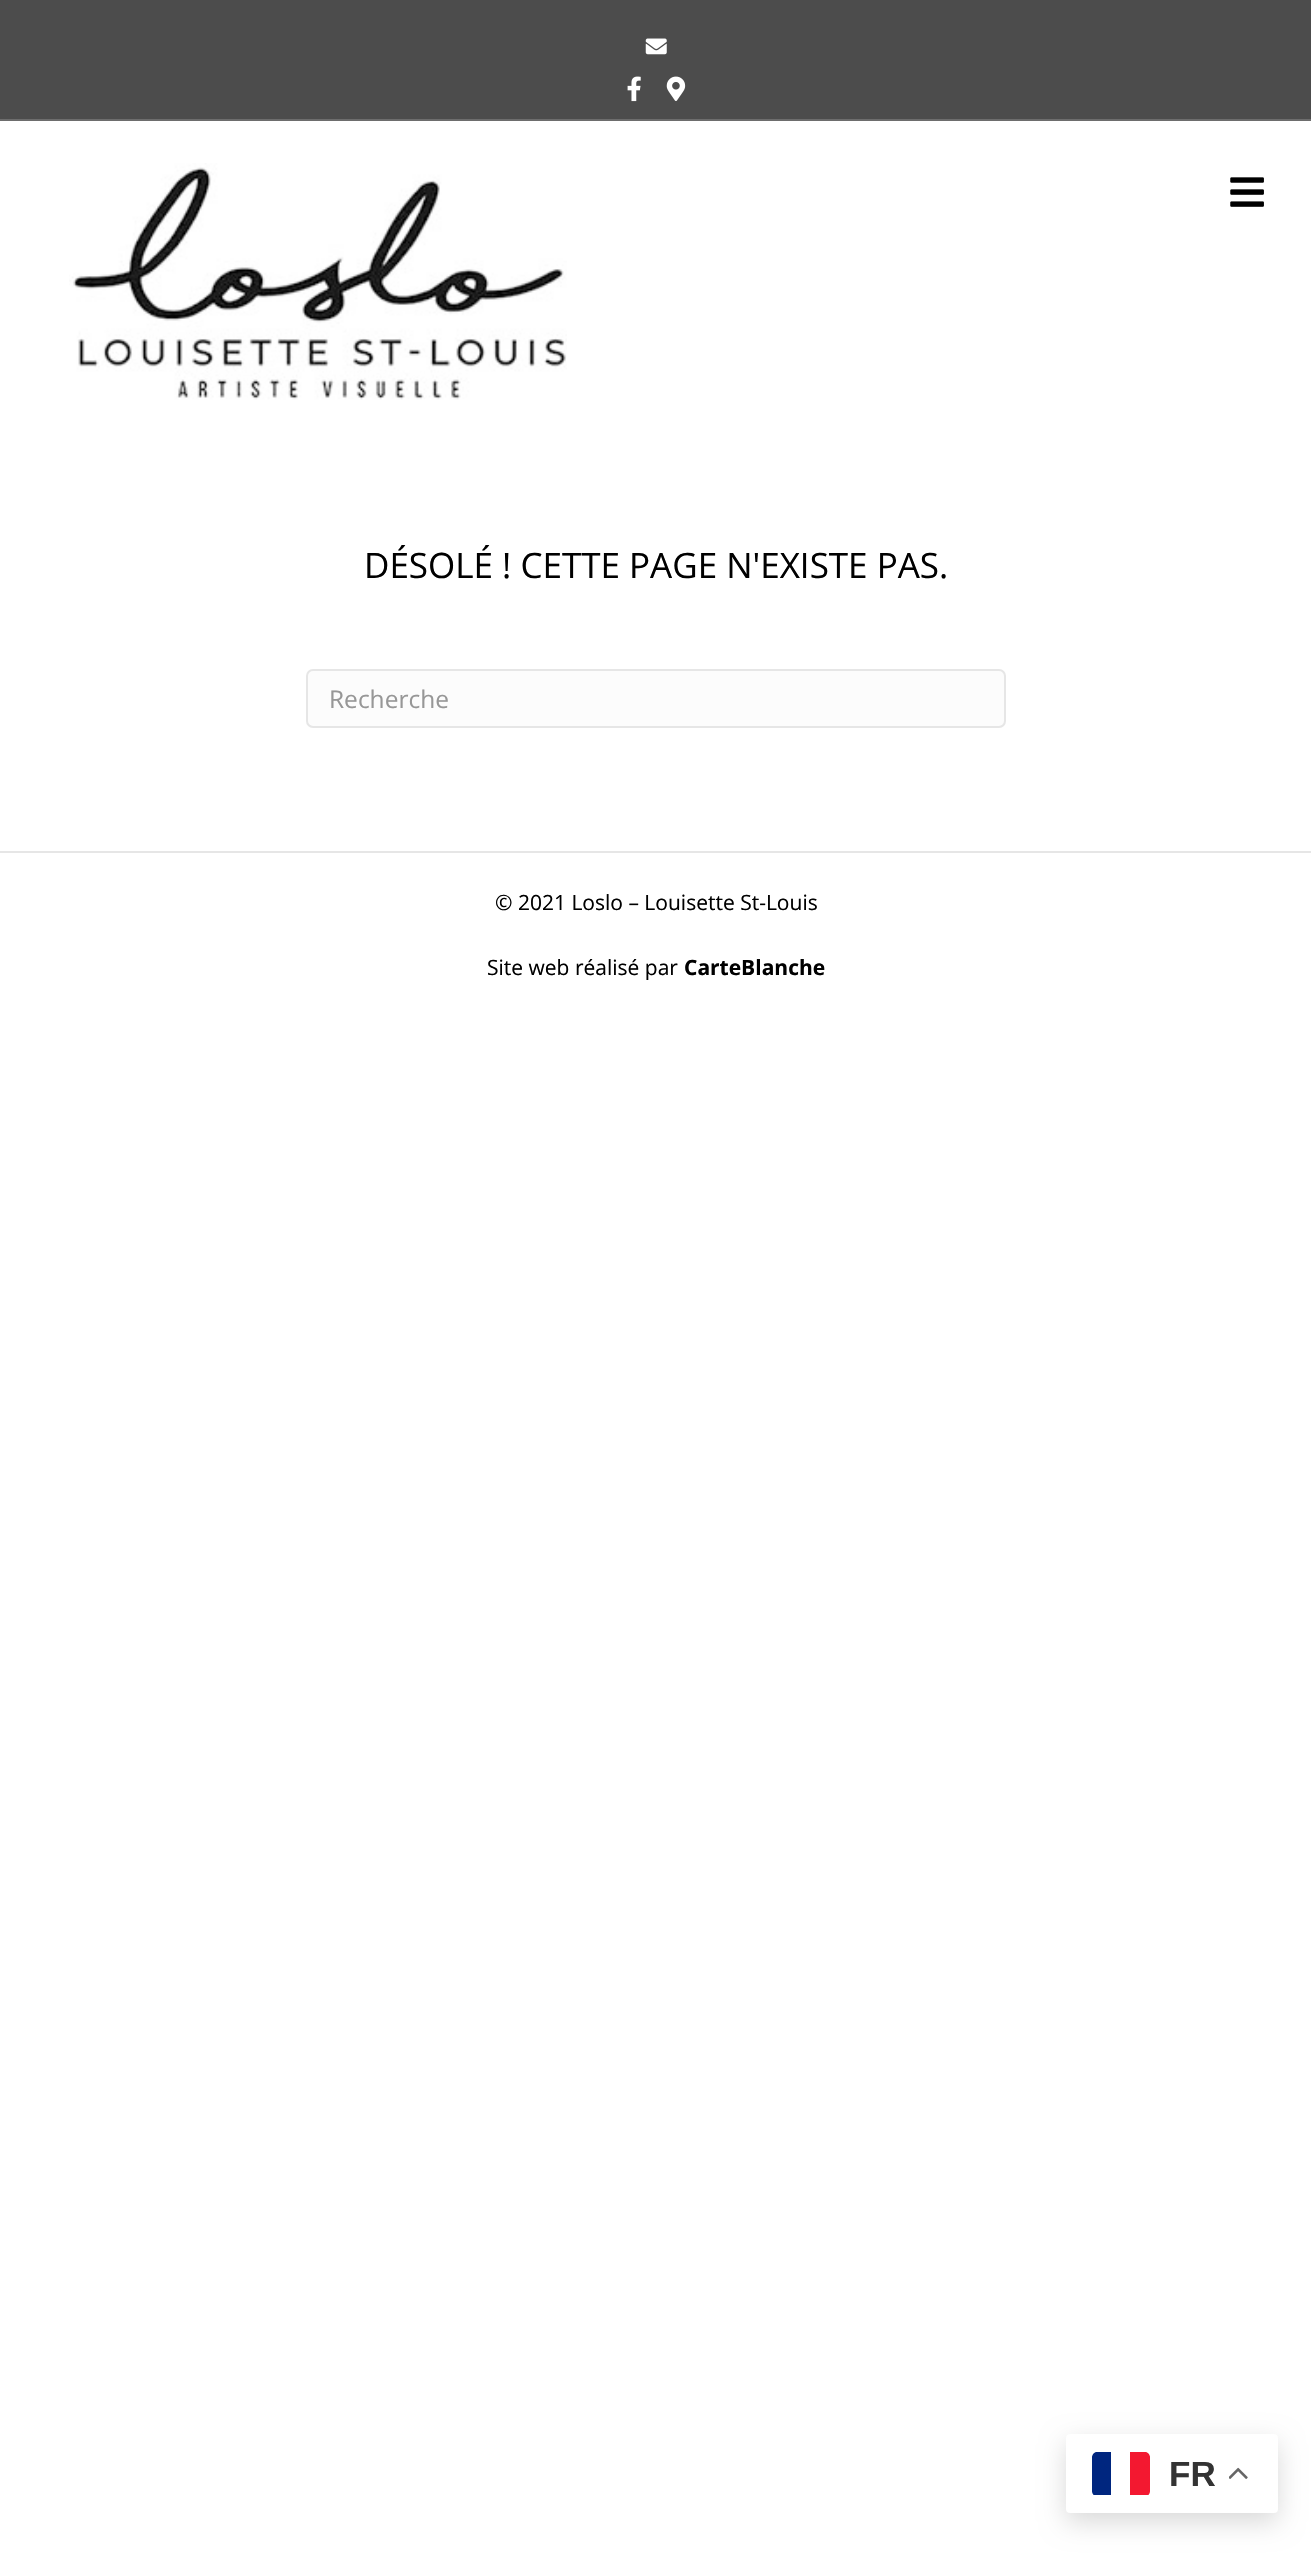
void draw(SkCanvas* canvas) {
	SkPaint fill;
	fill.setAntiAlias(true);
	auto makeFont = [&](const char* family, int weight, float size, bool italic = false) {
		SkFontStyle style(weight, SkFontStyle::kNormal_Width,
			italic ? SkFontStyle::kItalic_Slant : SkFontStyle::kUpright_Slant);
		SkFont result(fontMgr->matchFamilyStyle(family, style), size);
		result.setSubpixel(true);
		return result;
	};
	auto text = [&](const char* s, float x, float y, const SkFont& font) {
		canvas->drawString(s, x, y, font, fill);
	};
	auto box = [&](float l, float t, float r, float b) {
		canvas->drawRect(SkRect::MakeLTRB(l, t, r, b), fill);
	};
	auto roundBox = [&](float l, float t, float r, float b, float radius) {
		canvas->drawRoundRect(SkRect::MakeLTRB(l, t, r, b), radius, radius, fill);
	};
	auto picture = [&](const char* path, float l, float t, float r, float b) {
		auto image = SkImages::DeferredFromEncodedData(SkData::MakeFromFileName(path));
		canvas->drawImageRect(image, SkRect::MakeLTRB(l, t, r, b), SkSamplingOptions());
	};
	canvas->clear(0xFFFFFFFF);
	fill.setColor(0xFF4C4C4C);
	box(0, 0, 1311, 119);
	fill.setColor(0xFF6D6D6D);
	box(0, 119, 1311, 121);
	picture("image0.png", 645, 38, 667, 55);
	picture("image1.png", 627, 76, 641, 102);
	picture("image2.png", 666, 76, 686, 101);
	picture("image3.png", 69, 163, 567, 400);
	picture("image4.png", 1230, 177, 1264, 207);
	fill.setColor(0xFFFCFCFC);
	canvas->drawRoundRect(SkRect::MakeLTRB(307, 670, 1005, 727), 6, 6, fill);
	fill.setStyle(SkPaint::kStroke_Style);
	fill.setStrokeWidth(2);
	fill.setColor(0xFFE6E6E6);
	canvas->drawRoundRect(SkRect::MakeLTRB(307, 670, 1005, 727), 6, 6, fill);
	fill.setStyle(SkPaint::kFill_Style);
	box(0, 851, 1311, 853);
	fill.setColor(0x26000000);
	fill.setMaskFilter(SkMaskFilter::MakeBlur(kNormal_SkBlurStyle, 13));
	canvas->drawRoundRect(SkRect::MakeLTRB(1066, 2443, 1278, 2522), 4, 4, fill);
	fill.setMaskFilter(nullptr);
	fill.setColor(0xFFFFFFFF);
	roundBox(1066, 2434, 1278, 2513, 4);
	canvas->save();
	canvas->clipPath(SkPathBuilder().moveTo(1097, 2452).lineTo(1145, 2452).cubicTo(1148, 2452, 1150, 2454, 1150, 2457).lineTo(1150, 2491).cubicTo(1150, 2494, 1148, 2496, 1145, 2496).lineTo(1097, 2496).cubicTo(1094, 2496, 1092, 2494, 1092, 2491).lineTo(1092, 2457).cubicTo(1092, 2454, 1094, 2452, 1097, 2452).close().detach(), true);
	fill.setColor(0xFF00267F);
	canvas->drawPath(SkPathBuilder().moveTo(1097, 2452).lineTo(1111, 2452).lineTo(1111, 2495).lineTo(1092, 2495).lineTo(1092, 2457).cubicTo(1092, 2454, 1094, 2452, 1097, 2452).close().detach(), fill);
	fill.setColor(0xFFF31830);
	canvas->drawPath(SkPathBuilder().moveTo(1130, 2452).lineTo(1145, 2452).cubicTo(1148, 2452, 1150, 2454, 1150, 2457).lineTo(1150, 2495).lineTo(1130, 2495).close().detach(), fill);
	canvas->restore();
	picture("image5.png", 1229, 2467, 1248, 2479);
	auto font1 = makeFont("Open Sans", 400, 35);
	fill.setColor(0xFF000000);
	text("DÉSOLÉ ! CETTE PAGE N'EXISTE PAS.", 364, 578, font1);
	auto font2 = makeFont("Open Sans", 400, 24.5f);
	fill.setColor(0xFF979797);
	text("Recherche", 329, 708, font2);
	auto font3 = makeFont("Open Sans", 400, 21);
	fill.setColor(0xFF000000);
	text("© 2021 Loslo – Louisette St-Louis", 495, 910, font3);
	text("Site web réalisé par", 487, 975, font3);
	auto font4 = makeFont("Open Sans", 700, 21);
	text("CarteBlanche", 684, 975, font4);
	auto font5 = makeFont("Liberation Sans", 700, 35);
	fill.setColor(0xFF333333);
	text("FR", 1169, 2486, font5);
}
